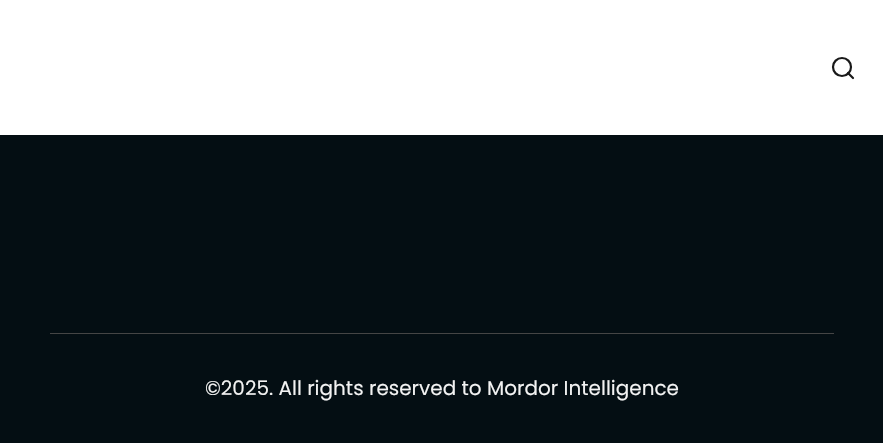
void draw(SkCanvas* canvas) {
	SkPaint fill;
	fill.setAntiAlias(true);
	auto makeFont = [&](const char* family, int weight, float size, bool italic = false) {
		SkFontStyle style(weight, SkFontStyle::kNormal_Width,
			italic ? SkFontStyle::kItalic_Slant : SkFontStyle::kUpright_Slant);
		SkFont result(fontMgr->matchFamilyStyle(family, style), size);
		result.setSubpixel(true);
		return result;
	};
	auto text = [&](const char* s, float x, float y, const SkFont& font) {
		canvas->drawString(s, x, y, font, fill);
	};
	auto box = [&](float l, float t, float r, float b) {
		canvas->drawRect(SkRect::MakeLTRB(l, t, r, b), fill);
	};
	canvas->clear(0xFF040E13);
	fill.setColor(0xFFFFFFFF);
	box(0, 0, 883, 135);
	fill.setStyle(SkPaint::kStroke_Style);
	fill.setStrokeWidth(2.2f);
	fill.setStrokeCap(SkPaint::kRound_Cap);
	fill.setStrokeJoin(SkPaint::kRound_Join);
	fill.setColor(0xFF191919);
	canvas->drawPath(SkPathBuilder().moveTo(853, 78).lineTo(848, 73).detach(), fill);
	fill.setStrokeCap(SkPaint::kButt_Cap);
	fill.setStrokeJoin(SkPaint::kMiter_Join);
	canvas->drawCircle(842, 67, 9, fill);
	fill.setStyle(SkPaint::kFill_Style);
	fill.setColor(0xFF454545);
	box(50, 333, 834, 334);
	auto font1 = makeFont("Poppins", 400, 20);
	fill.setColor(0xFFF2F2F2);
	text("©2025. All rights reserved to Mordor Intelligence", 205, 395, font1);
}
